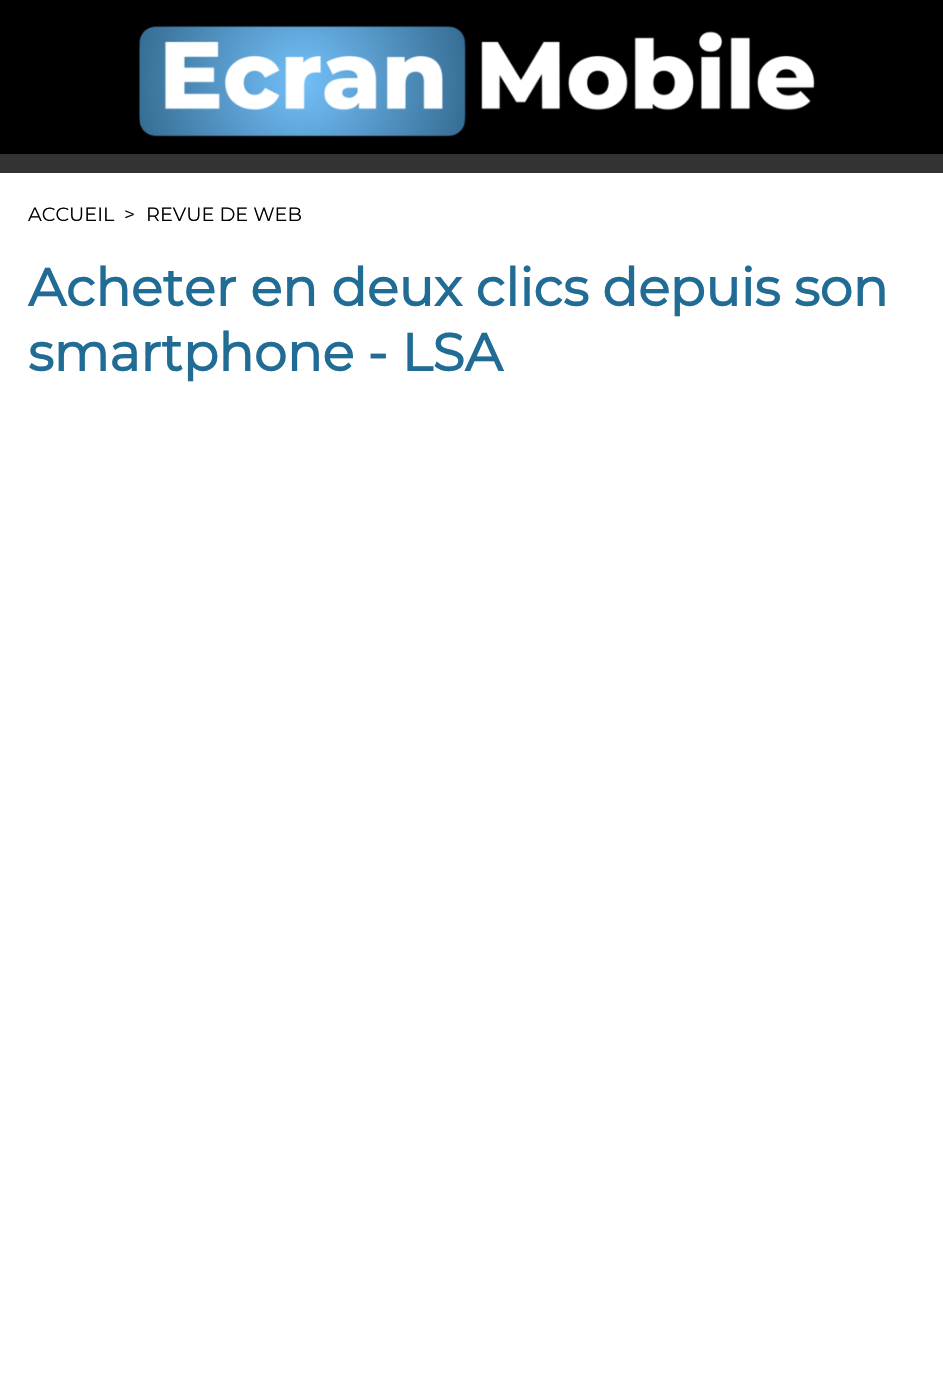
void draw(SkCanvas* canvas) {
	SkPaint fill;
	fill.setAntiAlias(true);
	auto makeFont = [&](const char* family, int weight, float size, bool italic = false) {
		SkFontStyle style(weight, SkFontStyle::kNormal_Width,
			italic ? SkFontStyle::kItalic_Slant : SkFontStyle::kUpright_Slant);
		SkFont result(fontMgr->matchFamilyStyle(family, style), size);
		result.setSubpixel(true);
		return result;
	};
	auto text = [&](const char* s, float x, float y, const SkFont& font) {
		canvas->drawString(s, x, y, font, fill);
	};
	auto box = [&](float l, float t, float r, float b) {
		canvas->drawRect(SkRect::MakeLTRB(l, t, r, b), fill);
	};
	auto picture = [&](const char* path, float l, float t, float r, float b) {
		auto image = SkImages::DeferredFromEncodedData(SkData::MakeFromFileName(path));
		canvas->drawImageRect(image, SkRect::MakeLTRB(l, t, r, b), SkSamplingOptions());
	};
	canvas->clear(0xFF333333);
	fill.setColor(0xFF000000);
	box(0, 0, 943, 154);
	picture("image0.png", 138, 25, 815, 137);
	fill.setColor(0xFFFFFFFF);
	box(0, 173, 943, 1391);
	auto font1 = makeFont("Montserrat", 100, 19.25f);
	fill.setColor(0xFF000000);
	text("ACCUEIL", 28, 221, font1);
	text(">", 124, 221, font1);
	text("REVUE DE WEB", 146, 221, font1);
	auto font2 = makeFont("Montserrat", 700, 52.5f);
	fill.setColor(0xFF216C94);
	text("Acheter en deux clics depuis son", 28, 306, font2);
	text("smartphone - LSA", 28, 371, font2);
}
